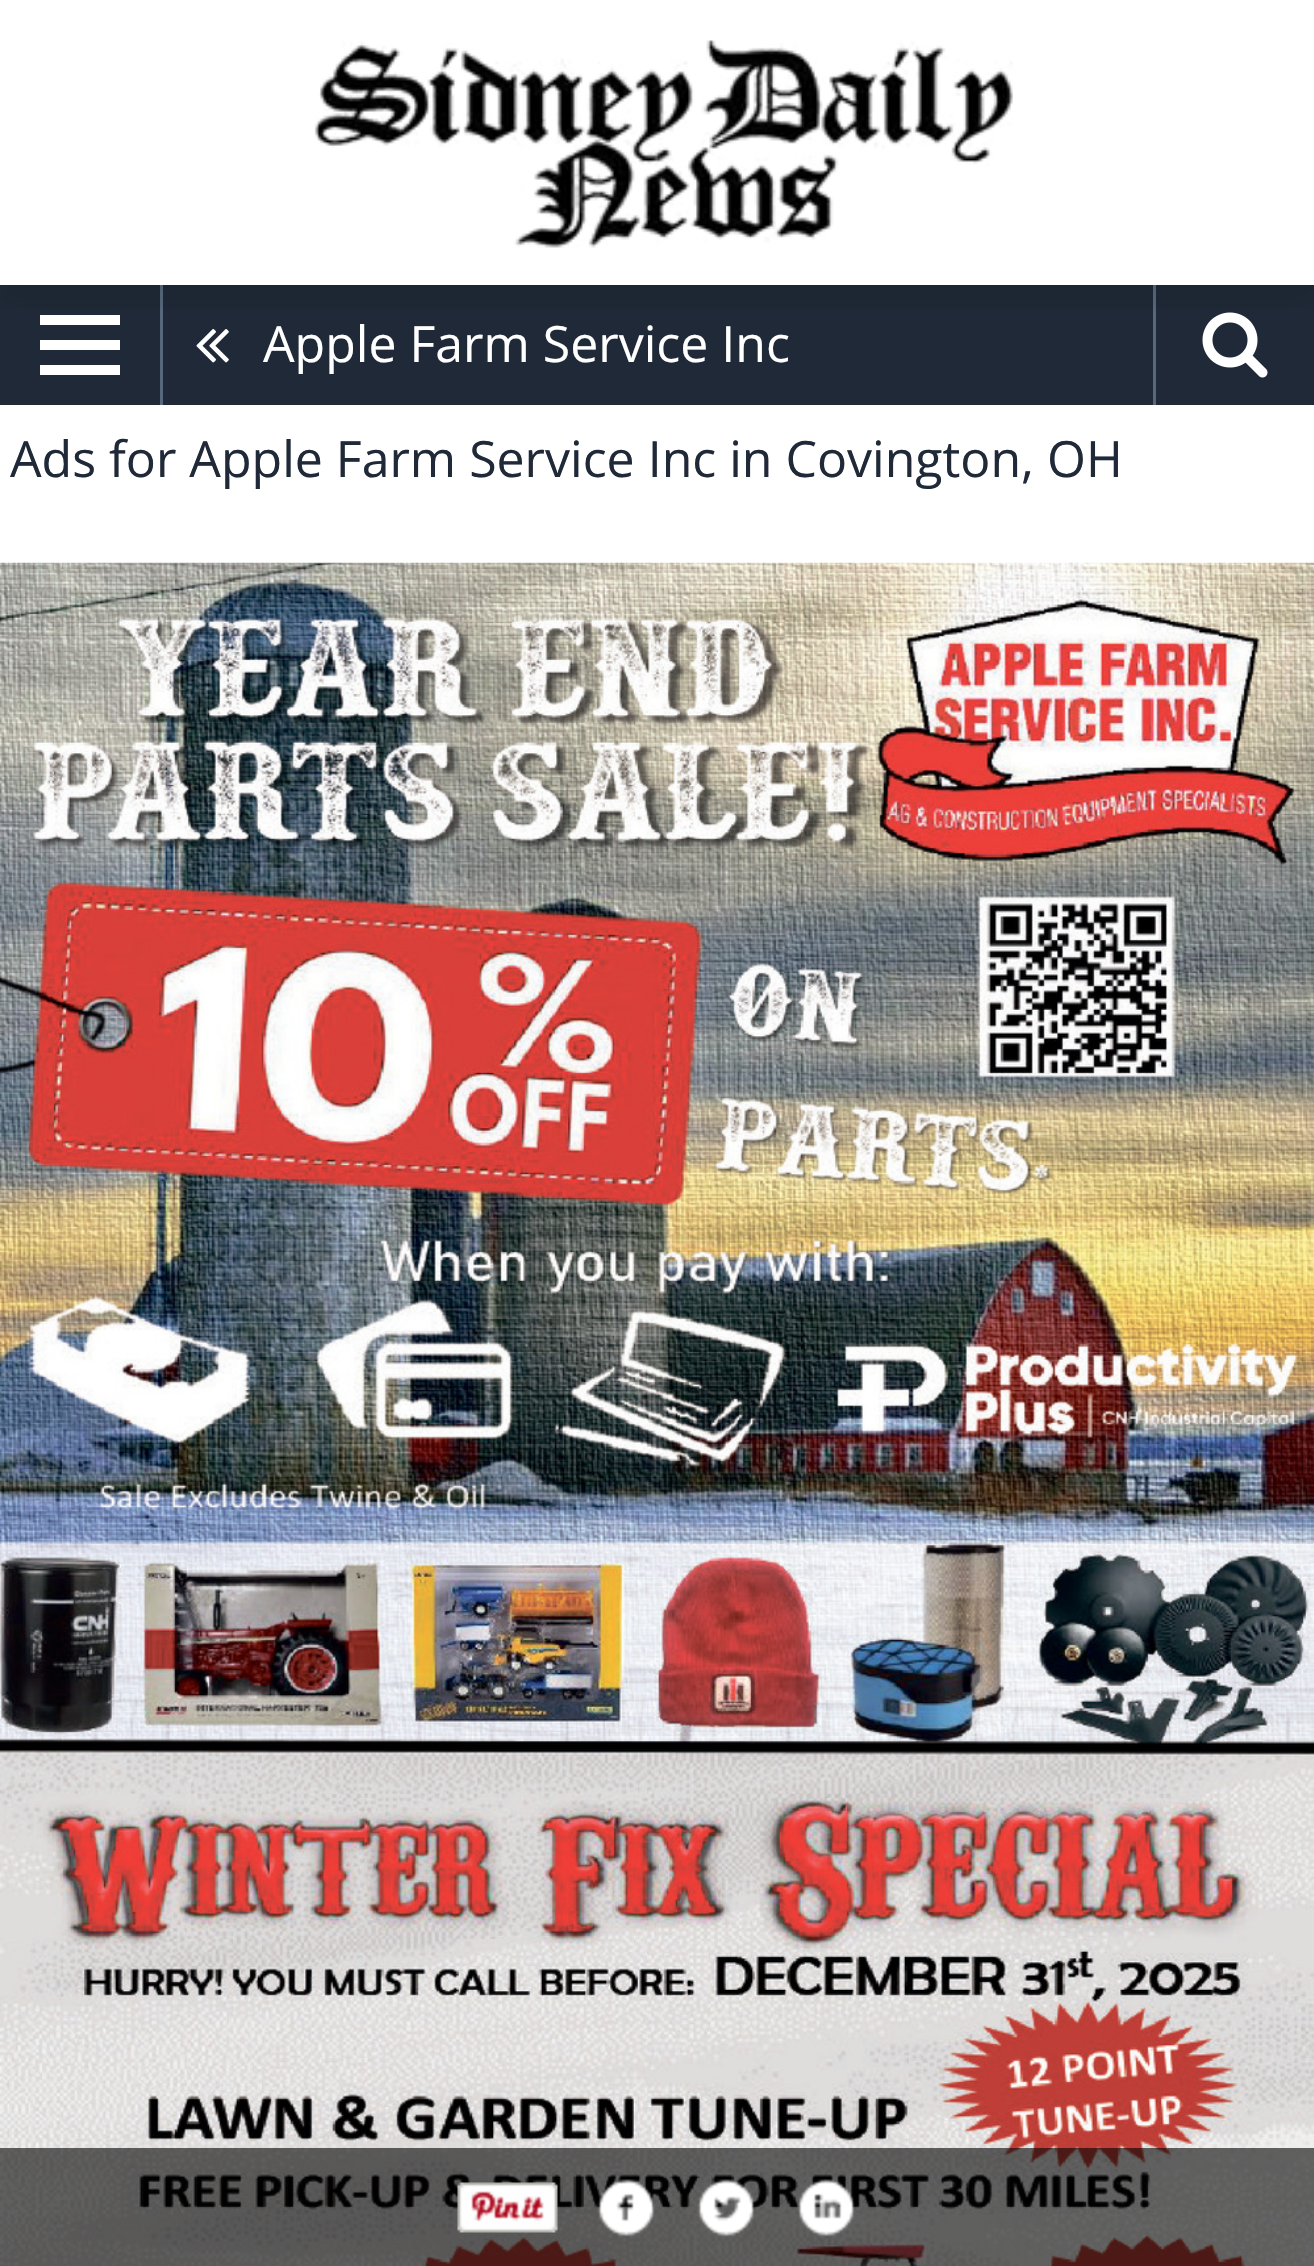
void draw(SkCanvas* canvas) {
	SkPaint fill;
	fill.setAntiAlias(true);
	auto makeFont = [&](const char* family, int weight, float size, bool italic = false) {
		SkFontStyle style(weight, SkFontStyle::kNormal_Width,
			italic ? SkFontStyle::kItalic_Slant : SkFontStyle::kUpright_Slant);
		SkFont result(fontMgr->matchFamilyStyle(family, style), size);
		result.setSubpixel(true);
		return result;
	};
	auto text = [&](const char* s, float x, float y, const SkFont& font) {
		canvas->drawString(s, x, y, font, fill);
	};
	auto box = [&](float l, float t, float r, float b) {
		canvas->drawRect(SkRect::MakeLTRB(l, t, r, b), fill);
	};
	auto picture = [&](const char* path, float l, float t, float r, float b) {
		auto image = SkImages::DeferredFromEncodedData(SkData::MakeFromFileName(path));
		canvas->drawImageRect(image, SkRect::MakeLTRB(l, t, r, b), SkSamplingOptions());
	};
	canvas->clear(0xFFFFFFFF);
	fill.setColor(0xFF1F2937);
	box(0, 285, 1314, 405);
	fill.setColor(0xFFFFFFFF);
	box(40, 315, 120, 325);
	fill.setColor(0xFF57677C);
	box(1153, 285, 1156, 405);
	box(160, 285, 163, 405);
	picture("image1.png", 196, 329, 229, 363);
	picture("image2.png", 1202, 312, 1268, 378);
	canvas->save();
	canvas->clipRect(SkRect::MakeLTRB(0, 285, 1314, 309));
	fill.setColor(0x1A000000);
	fill.setMaskFilter(SkMaskFilter::MakeBlur(kNormal_SkBlurStyle, 12.5f));
	canvas->drawRect(SkRect::MakeLTRB(0, 13, 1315, 298), fill);
	fill.setMaskFilter(nullptr);
	canvas->restore();
	picture("image0.png", 314, 40, 1013, 248);
	fill.setColor(0xFFFFFFFF);
	box(40, 340, 120, 350);
	box(40, 365, 120, 375);
	picture("image3.png", 0, 562, 1314, 2266);
	fill.setColor(0x99000000);
	box(0, 2148, 1314, 2266);
	picture("image4.png", 457, 2182, 558, 2233);
	picture("image5.png", 597, 2179, 655, 2237);
	picture("image6.png", 697, 2179, 755, 2237);
	picture("image7.png", 797, 2179, 855, 2237);
	auto font1 = makeFont("Open Sans", 400, 50);
	fill.setColor(0xFFFFFFFF);
	text("Apple Farm Service Inc", 263, 362, font1);
	fill.setColor(0xFF1F2937);
	text("Ads for Apple Farm Service Inc in Covington, OH", 10, 477, font1);
}
